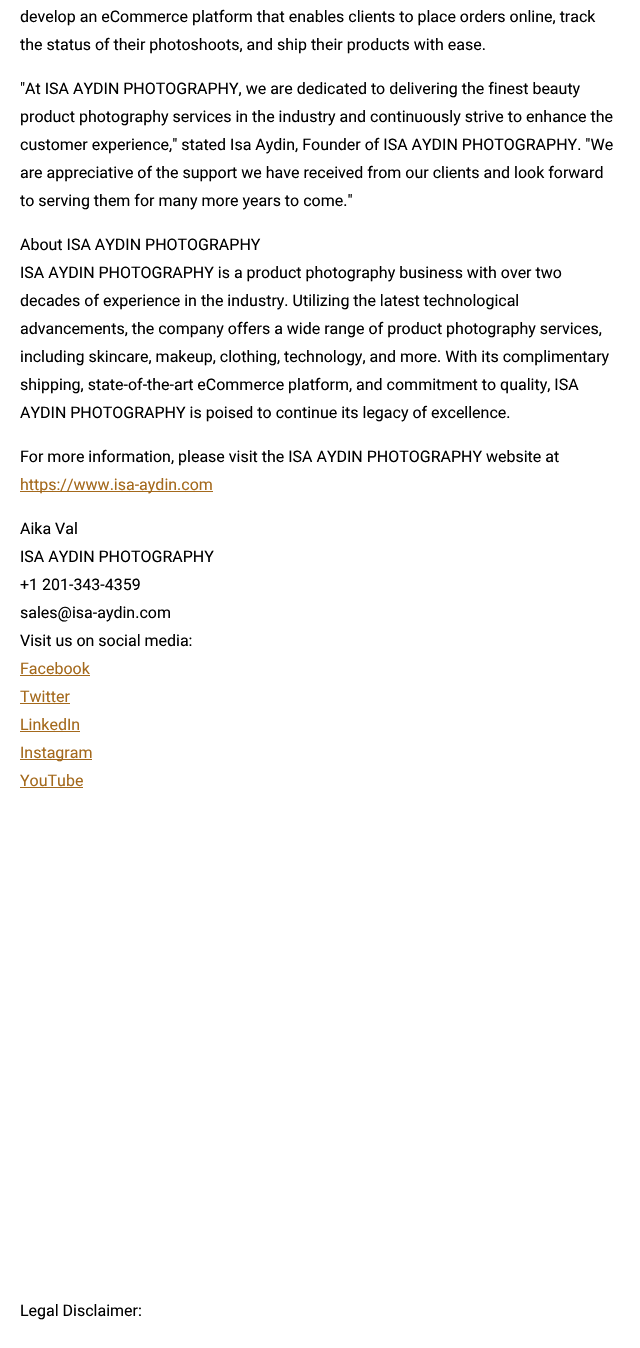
void draw(SkCanvas* canvas) {
	SkPaint fill;
	fill.setAntiAlias(true);
	auto makeFont = [&](const char* family, int weight, float size, bool italic = false) {
		SkFontStyle style(weight, SkFontStyle::kNormal_Width,
			italic ? SkFontStyle::kItalic_Slant : SkFontStyle::kUpright_Slant);
		SkFont result(fontMgr->matchFamilyStyle(family, style), size);
		result.setSubpixel(true);
		return result;
	};
	auto text = [&](const char* s, float x, float y, const SkFont& font) {
		canvas->drawString(s, x, y, font, fill);
	};
	auto box = [&](float l, float t, float r, float b) {
		canvas->drawRect(SkRect::MakeLTRB(l, t, r, b), fill);
	};
	canvas->clear(0xFFFFFFFF);
	fill.setColor(0xFFA4691C);
	box(20, 491, 213, 492);
	box(20, 675, 90, 676);
	box(20, 703, 70, 704);
	box(20, 731, 80, 732);
	box(20, 759, 92, 760);
	box(20, 787, 83, 788);
	auto font1 = makeFont("Roboto", 400, 16);
	fill.setColor(0xFF000000);
	text("develop an eCommerce platform that enables clients to place orders online, track", 20, 22, font1);
	text("the status of their photoshoots, and ship their products with ease.", 20, 50, font1);
	text("\"At ISA AYDIN PHOTOGRAPHY, we are dedicated to delivering the finest beauty", 20, 94, font1);
	text("product photography services in the industry and continuously strive to enhance the", 20, 122, font1);
	text("customer experience,\" stated Isa Aydin, Founder of ISA AYDIN PHOTOGRAPHY. \"We", 20, 150, font1);
	text("are appreciative of the support we have received from our clients and look forward", 20, 178, font1);
	text("to serving them for many more years to come.\"", 20, 206, font1);
	text("About ISA AYDIN PHOTOGRAPHY", 20, 250, font1);
	text("ISA AYDIN PHOTOGRAPHY is a product photography business with over two", 20, 278, font1);
	text("decades of experience in the industry. Utilizing the latest technological", 20, 306, font1);
	text("advancements, the company offers a wide range of product photography services,", 20, 334, font1);
	text("including skincare, makeup, clothing, technology, and more. With its complimentary", 20, 362, font1);
	text("shipping, state-of-the-art eCommerce platform, and commitment to quality, ISA", 20, 390, font1);
	text("AYDIN PHOTOGRAPHY is poised to continue its legacy of excellence.", 20, 418, font1);
	text("For more information, please visit the ISA AYDIN PHOTOGRAPHY website at", 20, 462, font1);
	fill.setColor(0xFFA4691C);
	text("https://www.isa-aydin.com", 20, 490, font1);
	fill.setColor(0xFF000000);
	text("Aika Val", 20, 534, font1);
	text("ISA AYDIN PHOTOGRAPHY", 20, 562, font1);
	text("+1 201-343-4359", 20, 590, font1);
	text("sales@isa-aydin.com", 20, 618, font1);
	text("Visit us on social media:", 20, 646, font1);
	fill.setColor(0xFFA4691C);
	text("Facebook", 20, 674, font1);
	text("Twitter", 20, 702, font1);
	text("LinkedIn", 20, 730, font1);
	text("Instagram", 20, 758, font1);
	text("YouTube", 20, 786, font1);
	fill.setColor(0xFF000000);
	text("Legal Disclaimer:", 20, 1316, font1);
}
